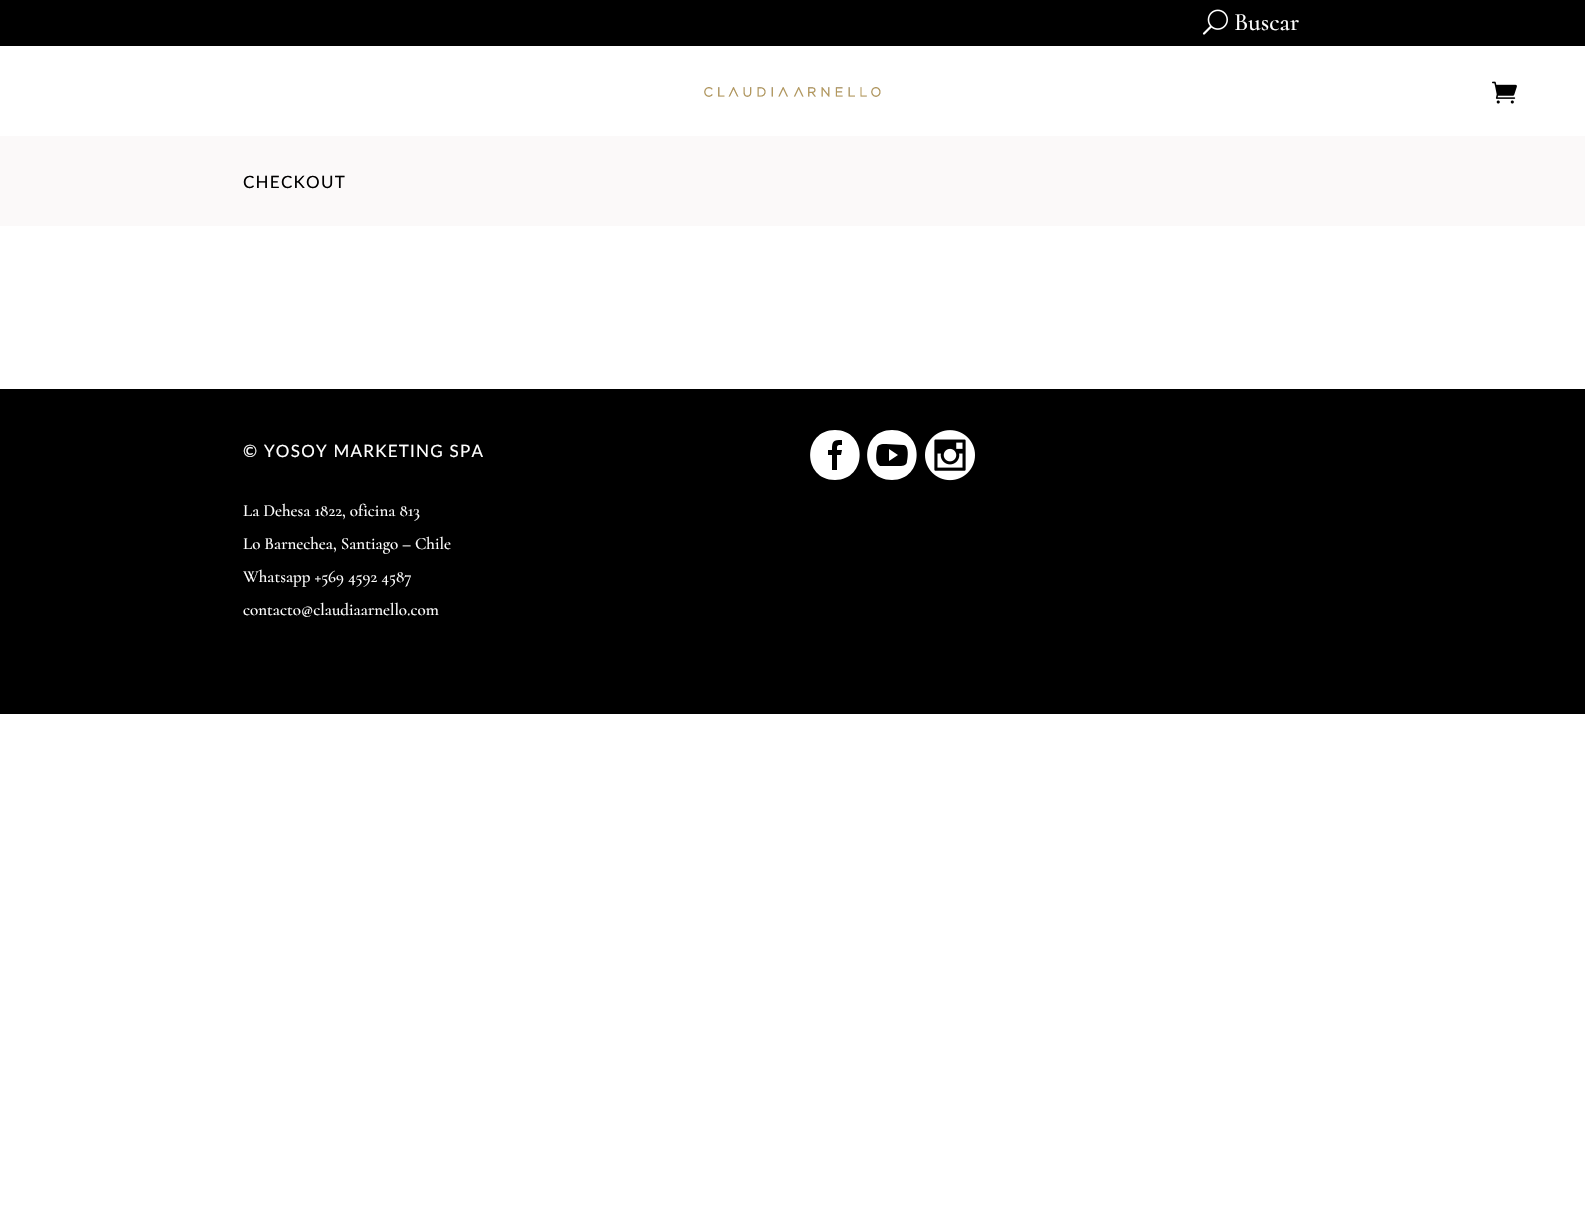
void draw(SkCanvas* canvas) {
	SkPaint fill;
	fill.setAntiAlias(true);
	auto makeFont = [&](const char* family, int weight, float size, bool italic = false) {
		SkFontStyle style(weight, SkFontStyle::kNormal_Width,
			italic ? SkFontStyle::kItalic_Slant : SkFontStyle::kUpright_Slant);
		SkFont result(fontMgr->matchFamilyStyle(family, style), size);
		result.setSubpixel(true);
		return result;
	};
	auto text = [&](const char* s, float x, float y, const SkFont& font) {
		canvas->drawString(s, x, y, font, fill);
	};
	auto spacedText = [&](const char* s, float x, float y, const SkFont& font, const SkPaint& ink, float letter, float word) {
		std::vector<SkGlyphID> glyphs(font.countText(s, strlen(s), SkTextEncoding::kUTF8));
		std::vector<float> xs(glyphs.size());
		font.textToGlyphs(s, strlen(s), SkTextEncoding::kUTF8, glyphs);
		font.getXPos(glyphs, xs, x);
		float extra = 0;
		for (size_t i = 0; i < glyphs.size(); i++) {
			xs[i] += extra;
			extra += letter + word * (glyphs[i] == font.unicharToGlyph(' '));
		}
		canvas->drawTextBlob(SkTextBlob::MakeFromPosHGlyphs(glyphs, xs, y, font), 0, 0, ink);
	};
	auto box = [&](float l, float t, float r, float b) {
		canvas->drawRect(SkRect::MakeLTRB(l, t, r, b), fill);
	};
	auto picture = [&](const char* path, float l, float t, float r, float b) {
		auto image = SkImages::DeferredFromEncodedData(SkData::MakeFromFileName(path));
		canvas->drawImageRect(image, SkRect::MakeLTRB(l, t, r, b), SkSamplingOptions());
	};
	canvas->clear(0xFFFFFFFF);
	fill.setColor(0xFF000000);
	box(0, 0, 1585, 46);
	picture("image0.png", 1202, 9, 1228, 35);
	picture("image1.png", 704, 87, 881, 97);
	picture("image2.png", 1492, 81, 1517, 104);
	fill.setColor(0xFFFBF9F9);
	box(0, 136, 1585, 226);
	fill.setColor(0xFF000000);
	box(0, 389, 1585, 714);
	fill.setColor(0xFFFFFFFF);
	canvas->drawPath(SkPathBuilder().moveTo(835, 430).cubicTo(868, 430, 868, 480, 835, 480).cubicTo(802, 480, 802, 430, 835, 430).close().moveTo(841, 455).lineTo(842, 450).lineTo(837, 450).cubicTo(837, 445, 837, 445, 842, 445).lineTo(842, 440).cubicTo(833, 440, 832, 441, 832, 450).lineTo(828, 450).lineTo(828, 455).lineTo(832, 455).lineTo(832, 470).lineTo(837, 470).lineTo(837, 455).close().detach(), fill);
	canvas->drawPath(SkPathBuilder().moveTo(892, 430).cubicTo(925, 430, 925, 480, 892, 480).cubicTo(859, 480, 859, 430, 892, 430).close().moveTo(907, 461).cubicTo(908, 457, 909, 446, 904, 445).lineTo(886, 444).cubicTo(882, 444, 877, 444, 877, 449).cubicTo(876, 453, 875, 464, 880, 466).lineTo(898, 466).cubicTo(902, 466, 907, 466, 907, 461).close().moveTo(889, 461).lineTo(889, 449).lineTo(898, 455).close().detach(), fill);
	picture("image3.png", 925, 430, 975, 481);
	auto font1 = makeFont("Cormorant", 500, 25);
	text("Buscar", 1234, 30, font1);
	auto font2 = makeFont("Lato", 400, 17);
	fill.setColor(0xFF000000);
	spacedText("CHECKOUT", 243, 188, font2, fill, 1.25f, 0);
	fill.setColor(0xFFFFFFFF);
	spacedText("© YOSOY MARKETING SPA", 243, 457, font2, fill, 1.25f, 0);
	auto font3 = makeFont("Cormorant", 500, 17);
	text("La Dehesa 1822, oficina 813", 243, 516, font3);
	text("Lo Barnechea, Santiago – Chile", 243, 549, font3);
	text("Whatsapp +569 4592 4587", 243, 582, font3);
	text("contacto@claudiaarnello.com", 243, 615, font3);
}
